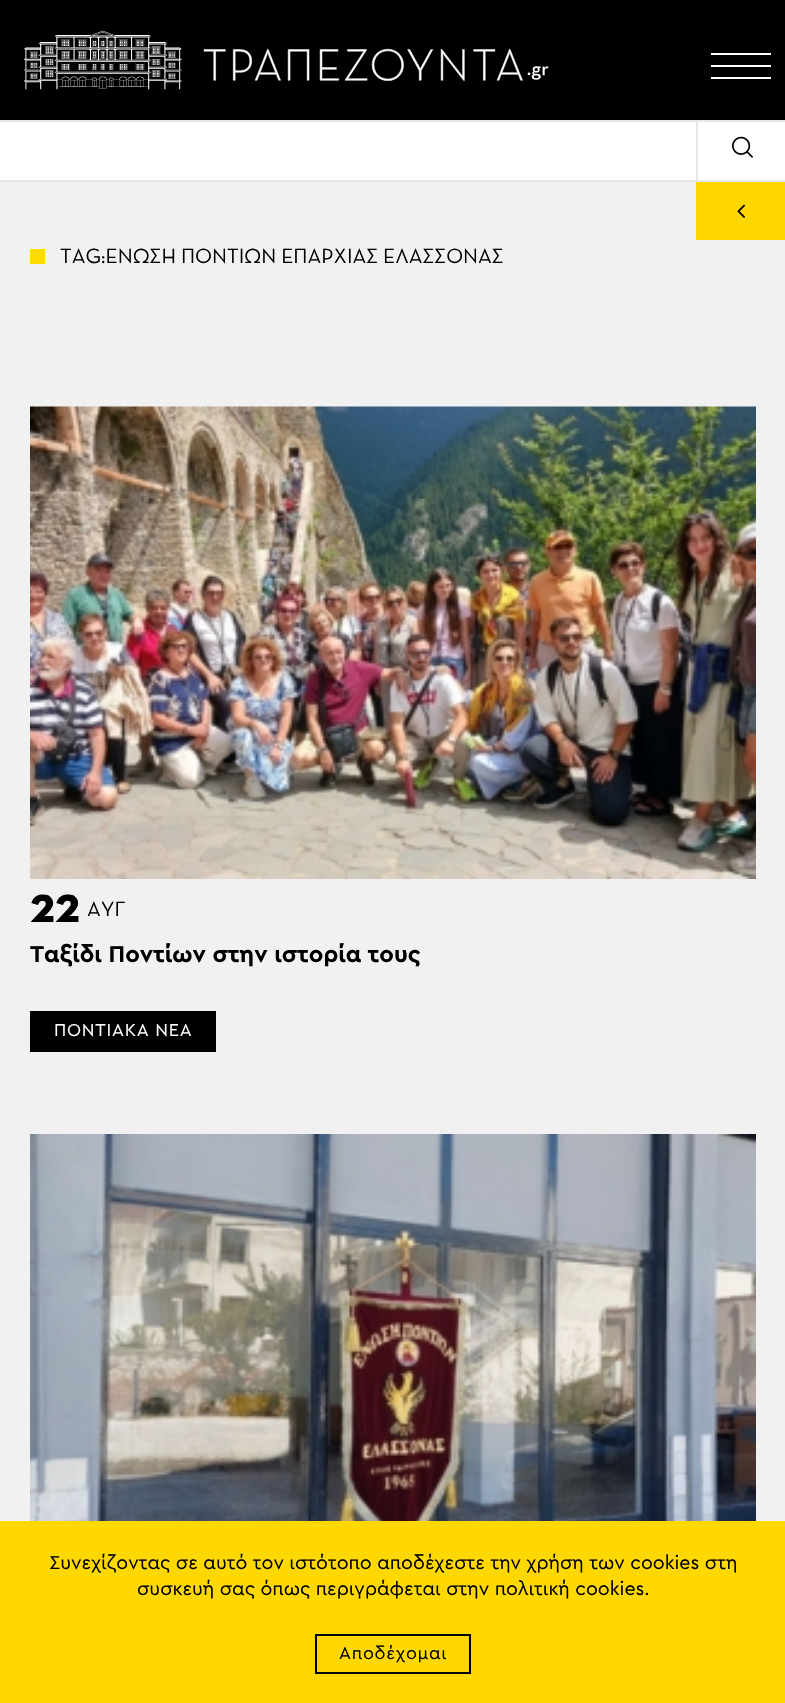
void draw(SkCanvas* canvas) {
	SkPaint fill;
	fill.setAntiAlias(true);
	auto makeFont = [&](const char* family, int weight, float size, bool italic = false) {
		SkFontStyle style(weight, SkFontStyle::kNormal_Width,
			italic ? SkFontStyle::kItalic_Slant : SkFontStyle::kUpright_Slant);
		SkFont result(fontMgr->matchFamilyStyle(family, style), size);
		result.setSubpixel(true);
		return result;
	};
	auto text = [&](const char* s, float x, float y, const SkFont& font) {
		canvas->drawString(s, x, y, font, fill);
	};
	auto spacedText = [&](const char* s, float x, float y, const SkFont& font, const SkPaint& ink, float letter, float word) {
		std::vector<SkGlyphID> glyphs(font.countText(s, strlen(s), SkTextEncoding::kUTF8));
		std::vector<float> xs(glyphs.size());
		font.textToGlyphs(s, strlen(s), SkTextEncoding::kUTF8, glyphs);
		font.getXPos(glyphs, xs, x);
		float extra = 0;
		for (size_t i = 0; i < glyphs.size(); i++) {
			xs[i] += extra;
			extra += letter + word * (glyphs[i] == font.unicharToGlyph(' '));
		}
		canvas->drawTextBlob(SkTextBlob::MakeFromPosHGlyphs(glyphs, xs, y, font), 0, 0, ink);
	};
	auto box = [&](float l, float t, float r, float b) {
		canvas->drawRect(SkRect::MakeLTRB(l, t, r, b), fill);
	};
	auto picture = [&](const char* path, float l, float t, float r, float b) {
		auto image = SkImages::DeferredFromEncodedData(SkData::MakeFromFileName(path));
		canvas->drawImageRect(image, SkRect::MakeLTRB(l, t, r, b), SkSamplingOptions());
	};
	canvas->clear(0xFFF1F1F1);
	fill.setColor(0xFFE6E6E6);
	box(0, 180, 785, 182);
	fill.setColor(0xFF000000);
	box(0, 0, 785, 120);
	picture("image0.png", 24, 30, 549, 90);
	fill.setColor(0xFFFFFFFF);
	box(711, 65, 771, 67);
	box(711, 53, 771, 55);
	box(711, 77, 771, 79);
	box(0, 122, 785, 180);
	fill.setColor(0xFFE6E6E6);
	box(0, 120, 785, 122);
	box(696, 120, 698, 180);
	picture("image1.png", 732, 136, 753, 158);
	fill.setColor(0xFFFED800);
	box(696, 182, 785, 240);
	picture("image2.png", 737, 204, 746, 218);
	fill.setColor(0xFFFEDA00);
	box(30, 249, 45, 264);
	picture("image3.png", 30, 406, 756, 879);
	fill.setColor(0xFF000000);
	box(30, 1011, 216, 1052);
	picture("image4.png", 30, 1134, 756, 1521);
	fill.setColor(0xFFFED800);
	box(0, 1521, 785, 1703);
	fill.setStyle(SkPaint::kStroke_Style);
	fill.setStrokeWidth(2);
	fill.setColor(0xFF000000);
	canvas->drawRect(SkRect::MakeLTRB(316, 1635, 470, 1673), fill);
	auto font1 = makeFont("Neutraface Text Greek", 400, 21);
	fill.setStyle(SkPaint::kFill_Style);
	text("TAG:ΕΝΩΣΗ ΠΟΝΤΙΩΝ ΕΠΑΡΧΙΑΣ ΕΛΑΣΣΟΝΑΣ", 60, 263, font1);
	auto font2 = makeFont("Neutraface Text Greek", 700, 52);
	text("22", 30, 922, font2);
	text("ΑΥΓ", 87, 916, font1);
	auto font3 = makeFont("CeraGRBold", 700, 24);
	text("Ταξίδι Ποντίων στην ιστορία τους", 30, 962, font3);
	auto font4 = makeFont("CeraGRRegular", 400, 18);
	fill.setColor(0xFFFFFFFF);
	spacedText("ΠΟΝΤΙΑΚΑ ΝΕΑ", 54, 1036, font4, fill, 0.75f, 0);
	auto font5 = makeFont("CeraGRRegular", 400, 19.5f);
	fill.setColor(0xFF000000);
	text("Συνεχίζοντας σε αυτό τον ιστότοπο αποδέχεστε την χρήση των cookies στη", 49, 1569, font5);
	text("συσκευή σας όπως περιγράφεται στην πολιτική cookies.", 137, 1595, font5);
	spacedText("Αποδέχομαι", 339, 1659, font4, fill, 0.75f, 0);
}
